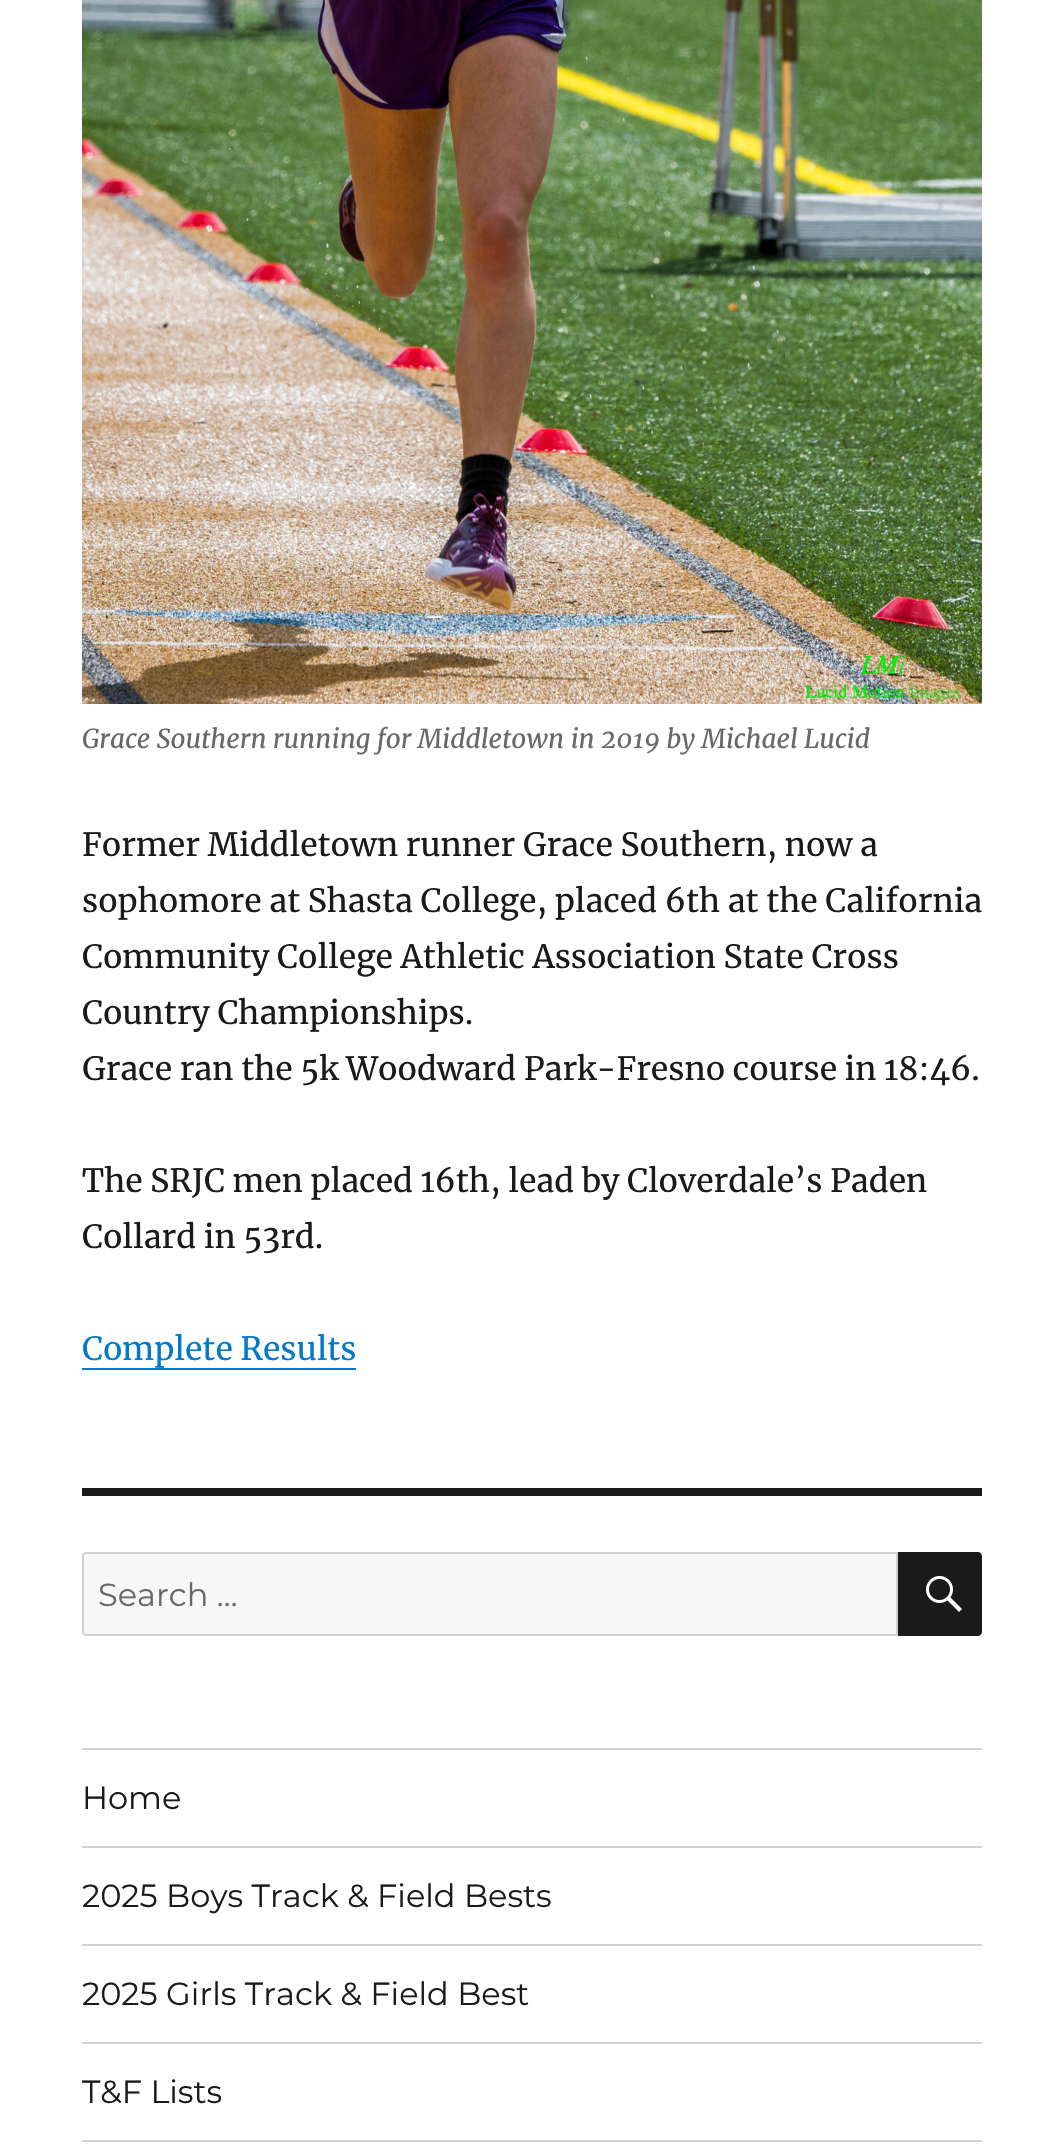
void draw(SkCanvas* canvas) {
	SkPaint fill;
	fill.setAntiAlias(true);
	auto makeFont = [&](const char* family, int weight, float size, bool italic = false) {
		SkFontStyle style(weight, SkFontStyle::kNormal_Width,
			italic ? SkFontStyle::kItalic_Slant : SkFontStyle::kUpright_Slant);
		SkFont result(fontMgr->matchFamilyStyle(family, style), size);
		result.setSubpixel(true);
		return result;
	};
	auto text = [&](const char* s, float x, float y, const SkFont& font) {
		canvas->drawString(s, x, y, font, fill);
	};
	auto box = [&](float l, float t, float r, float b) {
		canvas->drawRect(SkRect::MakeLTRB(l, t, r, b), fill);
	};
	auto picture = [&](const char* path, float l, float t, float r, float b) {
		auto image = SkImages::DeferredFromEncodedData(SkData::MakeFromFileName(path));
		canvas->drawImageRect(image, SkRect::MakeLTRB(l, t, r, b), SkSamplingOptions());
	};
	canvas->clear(0xFFFFFFFF);
	picture("image0.png", 82, 0, 982, 704);
	fill.setColor(0xFF007ACC);
	box(82, 1368, 356, 1370);
	fill.setColor(0xFF1A1A1A);
	box(82, 1488, 982, 1496);
	fill.setColor(0xFFF7F7F7);
	canvas->drawPath(SkPathBuilder().moveTo(86, 1553).lineTo(897, 1553).lineTo(897, 1635).lineTo(86, 1635).cubicTo(84.5f, 1635, 83, 1633.5f, 83, 1632).lineTo(83, 1556).cubicTo(83, 1554.5f, 84.5f, 1553, 86, 1553).close().detach(), fill);
	fill.setStyle(SkPaint::kStroke_Style);
	fill.setStrokeWidth(2);
	fill.setColor(0xFFD1D1D1);
	canvas->drawPath(SkPathBuilder().moveTo(86, 1553).lineTo(897, 1553).lineTo(897, 1635).lineTo(86, 1635).cubicTo(84.5f, 1635, 83, 1633.5f, 83, 1632).lineTo(83, 1556).cubicTo(83, 1554.5f, 84.5f, 1553, 86, 1553).close().detach(), fill);
	fill.setStyle(SkPaint::kFill_Style);
	fill.setColor(0xFF1A1A1A);
	canvas->drawPath(SkPathBuilder().moveTo(898, 1552).lineTo(978, 1552).cubicTo(980, 1552, 982, 1554, 982, 1556).lineTo(982, 1632).cubicTo(982, 1634, 980, 1636, 978, 1636).lineTo(898, 1636).close().detach(), fill);
	picture("image1.png", 926, 1576, 962, 1612);
	fill.setColor(0xFFD1D1D1);
	box(82, 1748, 982, 1750);
	box(82, 1846, 982, 1848);
	box(82, 1944, 982, 1946);
	box(82, 2042, 982, 2044);
	box(82, 2140, 982, 2142);
	auto font1 = makeFont("Merriweather", 400, 26, true);
	fill.setColor(0xFF686868);
	text("Grace Southern running for Middletown in 2019 by Michael Lucid", 82, 748, font1);
	auto font2 = makeFont("Merriweather", 400, 32);
	fill.setColor(0xFF1A1A1A);
	text("Former Middletown runner Grace Southern, now a", 82, 856, font2);
	text("sophomore at Shasta College, placed 6th at the California", 82, 912, font2);
	text("Community College Athletic Association State Cross", 82, 968, font2);
	text("Country Championships.", 82, 1024, font2);
	text("Grace ran the 5k Woodward Park-Fresno course in 18:46.", 82, 1080, font2);
	text("The SRJC men placed 16th, lead by Cloverdale’s Paden", 82, 1192, font2);
	text("Collard in 53rd.", 82, 1248, font2);
	fill.setColor(0xFF007ACC);
	text("Complete Results", 82, 1360, font2);
	auto font3 = makeFont("Montserrat", 100, 32);
	fill.setColor(0xFF686868);
	text("Search …", 98, 1606, font3);
	fill.setColor(0xFF1A1A1A);
	text("Home", 82, 1809, font3);
	text("2025 Boys Track & Field Bests", 82, 1907, font3);
	text("2025 Girls Track & Field Best", 82, 2005, font3);
	text("T&F Lists", 82, 2103, font3);
}
